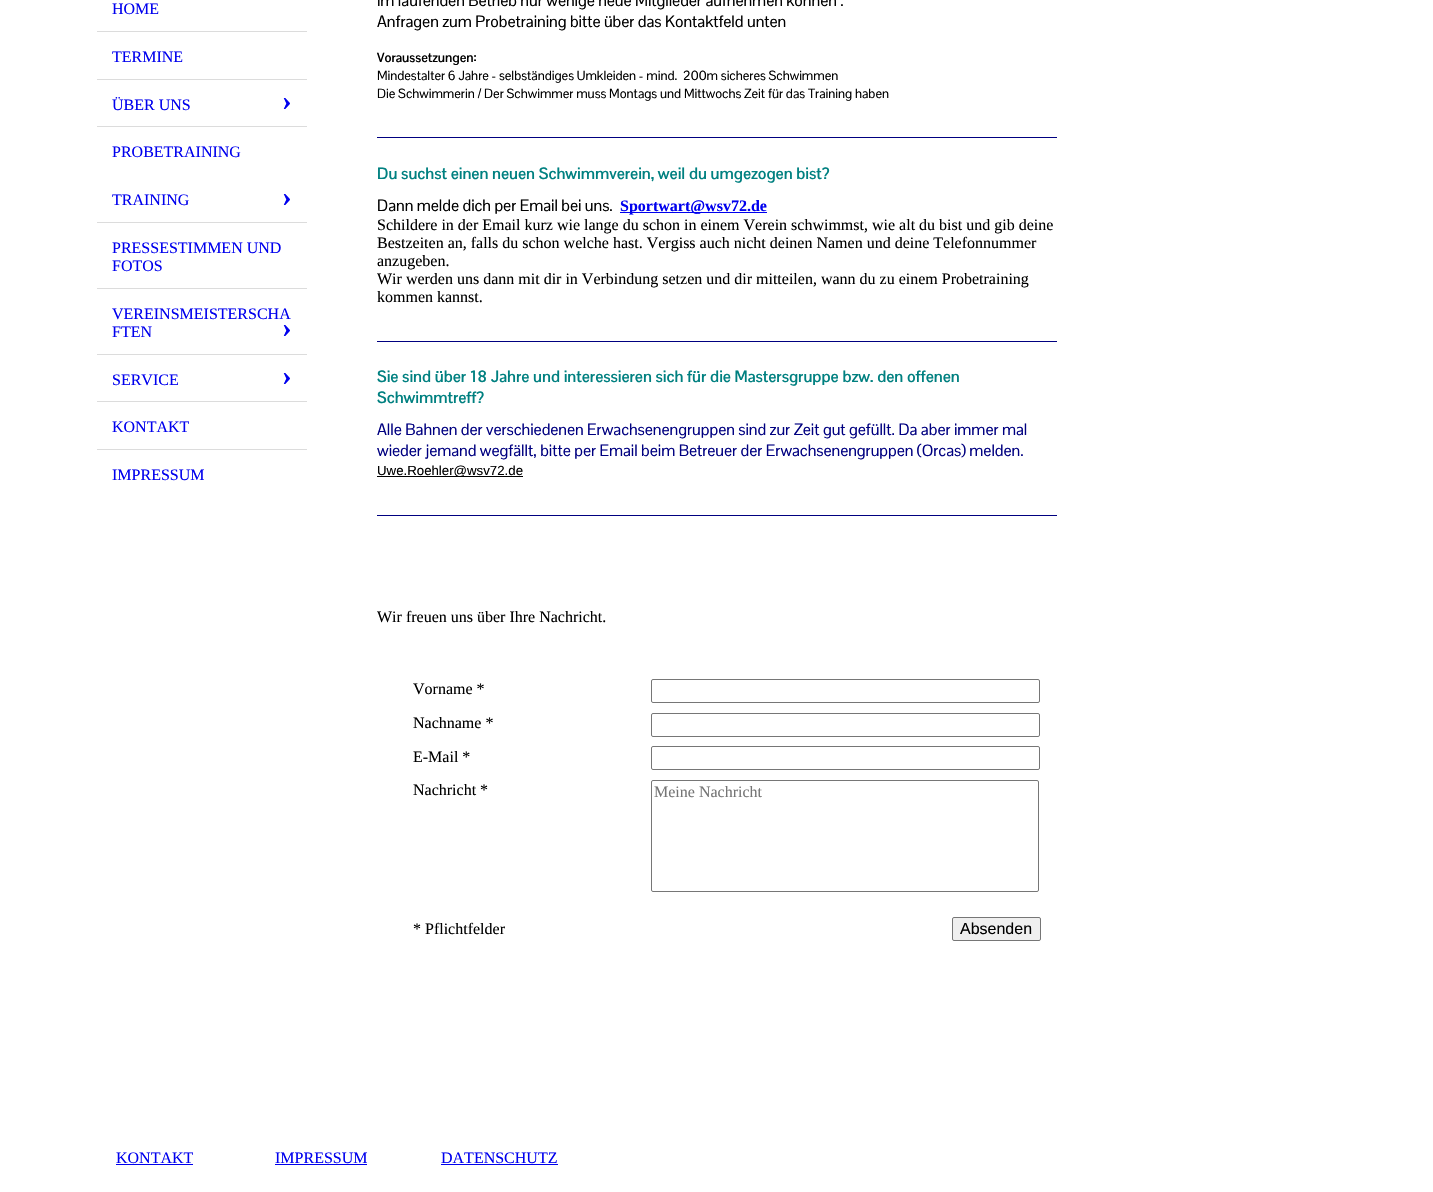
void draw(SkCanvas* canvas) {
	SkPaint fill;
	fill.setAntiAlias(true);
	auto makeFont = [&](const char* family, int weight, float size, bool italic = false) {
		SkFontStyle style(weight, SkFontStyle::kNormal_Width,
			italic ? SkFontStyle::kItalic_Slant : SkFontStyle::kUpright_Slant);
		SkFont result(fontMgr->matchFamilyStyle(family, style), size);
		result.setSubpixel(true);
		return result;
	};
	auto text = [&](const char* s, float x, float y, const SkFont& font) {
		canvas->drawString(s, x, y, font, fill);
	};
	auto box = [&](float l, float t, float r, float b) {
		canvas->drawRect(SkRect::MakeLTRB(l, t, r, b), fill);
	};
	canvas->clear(0xFFFFFFFF);
	fill.setColor(0xFFDCDCDC);
	box(97, 31, 307, 32);
	box(97, 79, 307, 80);
	box(97, 126, 307, 127);
	box(97, 222, 307, 223);
	box(97, 288, 307, 289);
	box(97, 354, 307, 355);
	box(97, 401, 307, 402);
	box(97, 449, 307, 450);
	fill.setColor(0xFF000080);
	box(377, 137, 1057, 138);
	fill.setColor(0xFF0000EE);
	box(620, 212, 767, 213);
	fill.setColor(0xFF000080);
	box(377, 341, 1057, 342);
	fill.setColor(0xFF000000);
	box(377, 476, 523, 477);
	fill.setColor(0xFF000080);
	box(377, 515, 1057, 516);
	fill.setStyle(SkPaint::kStroke_Style);
	fill.setStrokeWidth(1);
	fill.setColor(0xFF767676);
	canvas->drawRoundRect(SkRect::MakeLTRB(651.5f, 679.5f, 1039.5f, 702.5f), 1.5f, 1.5f, fill);
	canvas->drawRoundRect(SkRect::MakeLTRB(651.5f, 713.5f, 1039.5f, 736.5f), 1.5f, 1.5f, fill);
	canvas->drawRoundRect(SkRect::MakeLTRB(651.5f, 746.5f, 1039.5f, 769.5f), 1.5f, 1.5f, fill);
	canvas->drawRoundRect(SkRect::MakeLTRB(651.5f, 780.5f, 1038.5f, 891.5f), 1.5f, 1.5f, fill);
	fill.setStyle(SkPaint::kFill_Style);
	fill.setColor(0xFFEFEFEF);
	canvas->drawRoundRect(SkRect::MakeLTRB(952.5f, 917.5f, 1040.5f, 940.5f), 1.5f, 1.5f, fill);
	fill.setStyle(SkPaint::kStroke_Style);
	fill.setColor(0xFF767676);
	canvas->drawRoundRect(SkRect::MakeLTRB(952.5f, 917.5f, 1040.5f, 940.5f), 1.5f, 1.5f, fill);
	fill.setStyle(SkPaint::kFill_Style);
	fill.setColor(0xFF0000EE);
	box(116, 1164, 193, 1165);
	box(275, 1164, 367, 1165);
	box(441, 1164, 558, 1165);
	auto font1 = makeFont("Liberation Serif", 400, 16);
	text("HOME", 112, 14, font1);
	text("TERMINE", 112, 62, font1);
	text("ÜBER UNS", 112, 110, font1);
	auto font2 = makeFont("Liberation Serif", 700, 29);
	text("›", 282, 110, font2);
	text("PROBETRAINING", 112, 157, font1);
	text("TRAINING", 112, 205, font1);
	text("›", 282, 206, font2);
	text("PRESSESTIMMEN UND", 112, 253, font1);
	text("FOTOS", 112, 271, font1);
	text("VEREINSMEISTERSCHA", 112, 319, font1);
	text("FTEN", 112, 337, font1);
	text("›", 282, 337, font2);
	text("SERVICE", 112, 385, font1);
	text("›", 282, 385, font2);
	text("KONTAKT", 112, 432, font1);
	text("IMPRESSUM", 112, 480, font1);
	auto font3 = makeFont("Pontano Sans", 400, 16);
	fill.setColor(0xFF000000);
	text("im laufenden Betrieb nur wenige neue Mitglieder aufnehmen können .", 377, 6, font3);
	text("Anfragen zum Probetraining bitte über das Kontaktfeld unten", 377, 27, font3);
	auto font4 = makeFont("Pontano Sans", 700, 13);
	text("Voraussetzungen:", 377, 62, font4);
	auto font5 = makeFont("Pontano Sans", 400, 13);
	text("Mindestalter 6 Jahre - selbständiges Umkleiden - mind.  200m sicheres Schwimmen", 377, 80, font5);
	text("Die Schwimmerin / Der Schwimmer muss Montags und Mittwochs Zeit für das Training haben", 377, 98, font5);
	auto font6 = makeFont("Pontano Sans", 700, 16);
	fill.setColor(0xFF008080);
	text("Du suchst einen neuen Schwimmverein, weil du umgezogen bist?", 377, 179, font6);
	fill.setColor(0xFF000000);
	text("Dann melde dich per Email bei uns.", 377, 211, font3);
	auto font7 = makeFont("Liberation Serif", 700, 16);
	fill.setColor(0xFF0000EE);
	text("Sportwart@wsv72.de", 620, 211, font7);
	fill.setColor(0xFF000000);
	text("Schildere in der Email kurz wie lange du schon in einem Verein schwimmst, wie alt du bist und gib deine", 377, 230, font1);
	text("Bestzeiten an, falls du schon welche hast. Vergiss auch nicht deinen Namen und deine Telefonnummer", 377, 248, font1);
	text("anzugeben.", 377, 266, font1);
	text("Wir werden uns dann mit dir in Verbindung setzen und dir mitteilen, wann du zu einem Probetraining", 377, 284, font1);
	text("kommen kannst.", 377, 302, font1);
	fill.setColor(0xFF008080);
	text("Sie sind über 18 Jahre und interessieren sich für die Mastersgruppe bzw. den offenen", 377, 382, font6);
	text("Schwimmtreff?", 377, 403, font6);
	fill.setColor(0xFF000080);
	text("Alle Bahnen der verschiedenen Erwachsenengruppen sind zur Zeit gut gefüllt. Da aber immer mal", 377, 435, font3);
	text("wieder jemand wegfällt, bitte per Email beim Betreuer der Erwachsenengruppen (Orcas) melden.", 377, 456, font3);
	auto font8 = makeFont("Liberation Sans", 400, 13.25f);
	fill.setColor(0xFF000000);
	text("Uwe.Roehler@wsv72.de", 377, 475, font8);
	text("Wir freuen uns über Ihre Nachricht.", 377, 622, font1);
	text("Vorname *", 413, 694, font1);
	text("Nachname *", 413, 728, font1);
	text("E-Mail *", 413, 762, font1);
	text("Nachricht *", 413, 795, font1);
	fill.setColor(0xFF757575);
	text("Meine Nachricht", 654, 797, font1);
	fill.setColor(0xFF000000);
	text("* Pflichtfelder", 413, 934, font1);
	auto font9 = makeFont("Liberation Sans", 400, 16);
	text("Absenden", 960, 934, font9);
	fill.setColor(0xFF0000EE);
	text("KONTAKT", 116, 1163, font1);
	text("IMPRESSUM", 275, 1163, font1);
	text("DATENSCHUTZ", 441, 1163, font1);
}
